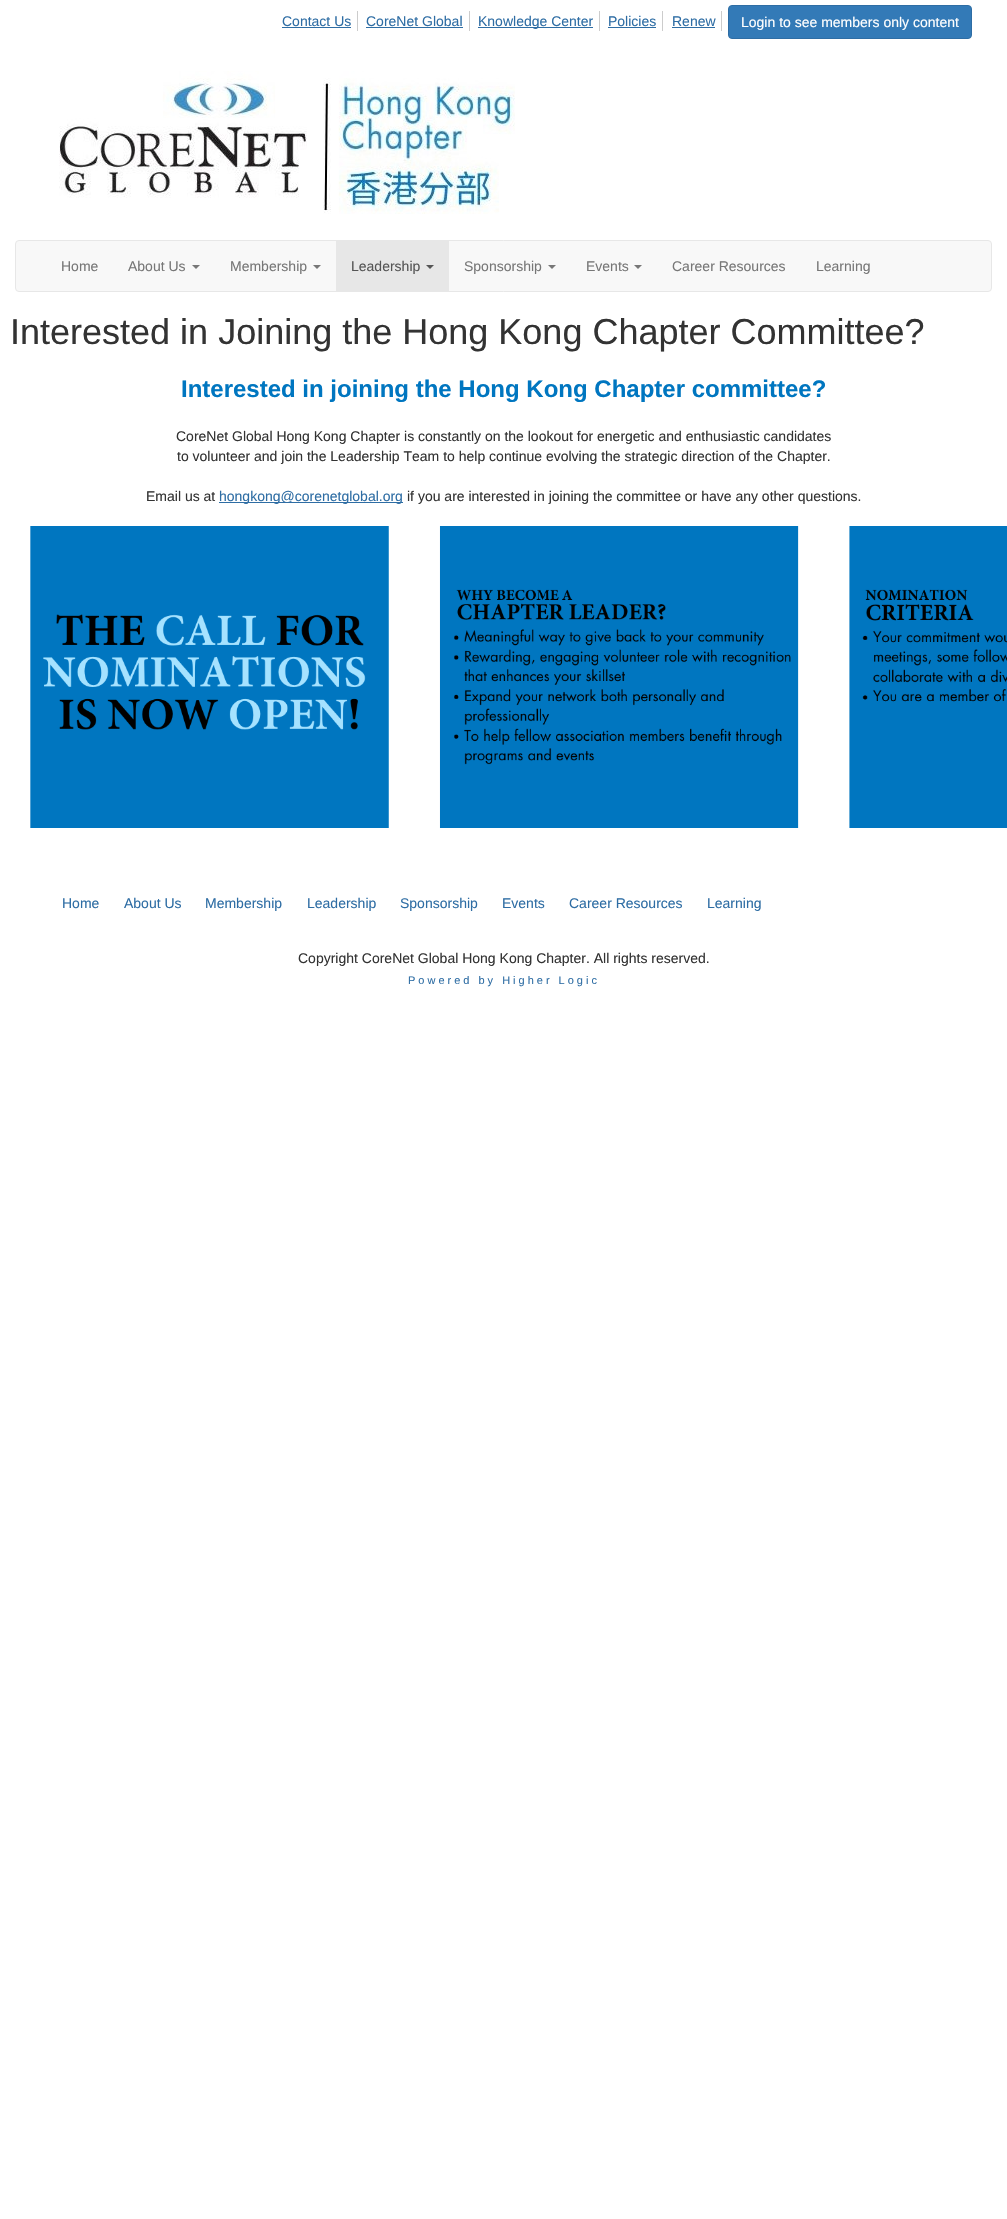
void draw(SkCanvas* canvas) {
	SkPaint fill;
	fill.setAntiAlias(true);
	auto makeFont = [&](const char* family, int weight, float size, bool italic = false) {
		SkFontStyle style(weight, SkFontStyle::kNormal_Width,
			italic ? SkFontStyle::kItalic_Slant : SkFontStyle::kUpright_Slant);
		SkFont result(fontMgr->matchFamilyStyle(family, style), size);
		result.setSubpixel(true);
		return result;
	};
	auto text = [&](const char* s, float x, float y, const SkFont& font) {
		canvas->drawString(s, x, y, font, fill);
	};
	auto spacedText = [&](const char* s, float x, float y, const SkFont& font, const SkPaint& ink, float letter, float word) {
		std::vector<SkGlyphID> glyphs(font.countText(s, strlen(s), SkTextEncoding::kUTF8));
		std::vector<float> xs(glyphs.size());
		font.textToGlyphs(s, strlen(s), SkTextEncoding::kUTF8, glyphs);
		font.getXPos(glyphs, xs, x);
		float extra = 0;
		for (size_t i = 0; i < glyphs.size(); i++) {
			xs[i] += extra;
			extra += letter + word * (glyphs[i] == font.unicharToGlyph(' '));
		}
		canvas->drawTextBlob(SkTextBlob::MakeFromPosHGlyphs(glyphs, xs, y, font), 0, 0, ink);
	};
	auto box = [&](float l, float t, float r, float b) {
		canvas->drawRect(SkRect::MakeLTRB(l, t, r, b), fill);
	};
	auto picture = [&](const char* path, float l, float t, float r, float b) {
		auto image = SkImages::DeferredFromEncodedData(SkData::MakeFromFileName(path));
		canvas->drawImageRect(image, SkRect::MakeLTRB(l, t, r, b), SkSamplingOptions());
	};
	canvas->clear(0xFFFFFFFF);
	fill.setColor(0xFFCCCCCC);
	box(357, 11, 358, 31);
	fill.setColor(0xFF2E6DA4);
	box(282, 27, 351, 28);
	fill.setColor(0xFFCCCCCC);
	box(469, 11, 470, 31);
	fill.setColor(0xFF2E6DA4);
	box(366, 27, 463, 28);
	fill.setColor(0xFFCCCCCC);
	box(599, 11, 600, 31);
	fill.setColor(0xFF2E6DA4);
	box(478, 27, 593, 28);
	fill.setColor(0xFFCCCCCC);
	box(662, 11, 663, 31);
	fill.setColor(0xFF2E6DA4);
	box(608, 27, 656, 28);
	fill.setColor(0xFFCCCCCC);
	box(721, 11, 722, 31);
	fill.setColor(0xFF2E6DA4);
	box(672, 27, 715, 28);
	fill.setColor(0xFF337AB7);
	canvas->drawRoundRect(SkRect::MakeLTRB(728.5f, 5.5f, 971.5f, 38.5f), 3.5f, 3.5f, fill);
	fill.setStyle(SkPaint::kStroke_Style);
	fill.setStrokeWidth(1);
	fill.setColor(0xFF2E6DA4);
	canvas->drawRoundRect(SkRect::MakeLTRB(728.5f, 5.5f, 971.5f, 38.5f), 3.5f, 3.5f, fill);
	picture("image0.png", 59, 71, 515, 214);
	fill.setStyle(SkPaint::kFill_Style);
	fill.setColor(0xFFF8F8F8);
	canvas->drawRoundRect(SkRect::MakeLTRB(15.5f, 240.5f, 991.5f, 291.5f), 3.5f, 3.5f, fill);
	fill.setStyle(SkPaint::kStroke_Style);
	fill.setColor(0xFFE7E7E7);
	canvas->drawRoundRect(SkRect::MakeLTRB(15.5f, 240.5f, 991.5f, 291.5f), 3.5f, 3.5f, fill);
	fill.setStyle(SkPaint::kFill_Style);
	fill.setColor(0xFF777777);
	canvas->drawPath(SkPathBuilder().moveTo(192, 265).lineTo(200, 265).lineTo(196, 269).close().detach(), fill);
	canvas->drawPath(SkPathBuilder().moveTo(313, 265).lineTo(321, 265).lineTo(317, 269).close().detach(), fill);
	fill.setColor(0xFFE7E7E7);
	box(336, 241, 449, 291);
	fill.setColor(0xFF555555);
	canvas->drawPath(SkPathBuilder().moveTo(426, 265).lineTo(434, 265).lineTo(430, 269).close().detach(), fill);
	fill.setColor(0xFF777777);
	canvas->drawPath(SkPathBuilder().moveTo(548, 265).lineTo(556, 265).lineTo(552, 269).close().detach(), fill);
	canvas->drawPath(SkPathBuilder().moveTo(634, 265).lineTo(642, 265).lineTo(638, 269).close().detach(), fill);
	fill.setColor(0xFF2E6DA4);
	box(219, 502, 403, 503);
	picture("image1.png", 30, 526, 1007, 828);
	auto font1 = makeFont("Liberation Sans", 400, 14);
	text("Contact Us", 282, 26, font1);
	text("CoreNet Global", 366, 26, font1);
	text("Knowledge Center", 478, 26, font1);
	text("Policies", 608, 26, font1);
	text("Renew", 672, 26, font1);
	fill.setColor(0xFFFFFFFF);
	text("Login to see members only content", 741, 27, font1);
	fill.setColor(0xFF777777);
	text("Home", 61, 271, font1);
	text("About Us", 128, 271, font1);
	text("Membership", 230, 271, font1);
	fill.setColor(0xFF555555);
	text("Leadership", 351, 271, font1);
	fill.setColor(0xFF777777);
	text("Sponsorship", 464, 271, font1);
	text("Events", 586, 271, font1);
	text("Career Resources", 672, 271, font1);
	text("Learning", 816, 271, font1);
	auto font2 = makeFont("Liberation Sans", 400, 36);
	fill.setColor(0xFF333333);
	text("Interested in Joining the Hong Kong Chapter Committee?", 10, 344, font2);
	auto font3 = makeFont("Liberation Sans", 700, 24);
	fill.setColor(0xFF0076C0);
	text("Interested in joining the Hong Kong Chapter committee?", 181, 397, font3);
	fill.setColor(0xFF333333);
	text("CoreNet Global Hong Kong Chapter is constantly on the lookout for energetic and enthusiastic candidates", 176, 441, font1);
	text("to volunteer and join the Leadership Team to help continue evolving the strategic direction of the Chapter.", 177, 461, font1);
	text("Email us at", 146, 501, font1);
	fill.setColor(0xFF2E6DA4);
	text("hongkong@corenetglobal.org", 219, 501, font1);
	fill.setColor(0xFF333333);
	text("if you are interested in joining the committee or have any other questions.", 407, 501, font1);
	fill.setColor(0xFF2E6DA4);
	text("Home", 62, 908, font1);
	text("About Us", 124, 908, font1);
	text("Membership", 205, 908, font1);
	text("Leadership", 307, 908, font1);
	text("Sponsorship", 400, 908, font1);
	text("Events", 502, 908, font1);
	text("Career Resources", 569, 908, font1);
	text("Learning", 707, 908, font1);
	fill.setColor(0xFF333333);
	text("Copyright CoreNet Global Hong Kong Chapter. All rights reserved.", 298, 963, font1);
	auto font4 = makeFont("Liberation Sans", 400, 11);
	fill.setColor(0xFF2E6DA4);
	spacedText("Powered by Higher Logic", 408, 984, font4, fill, 3, 0);
}
